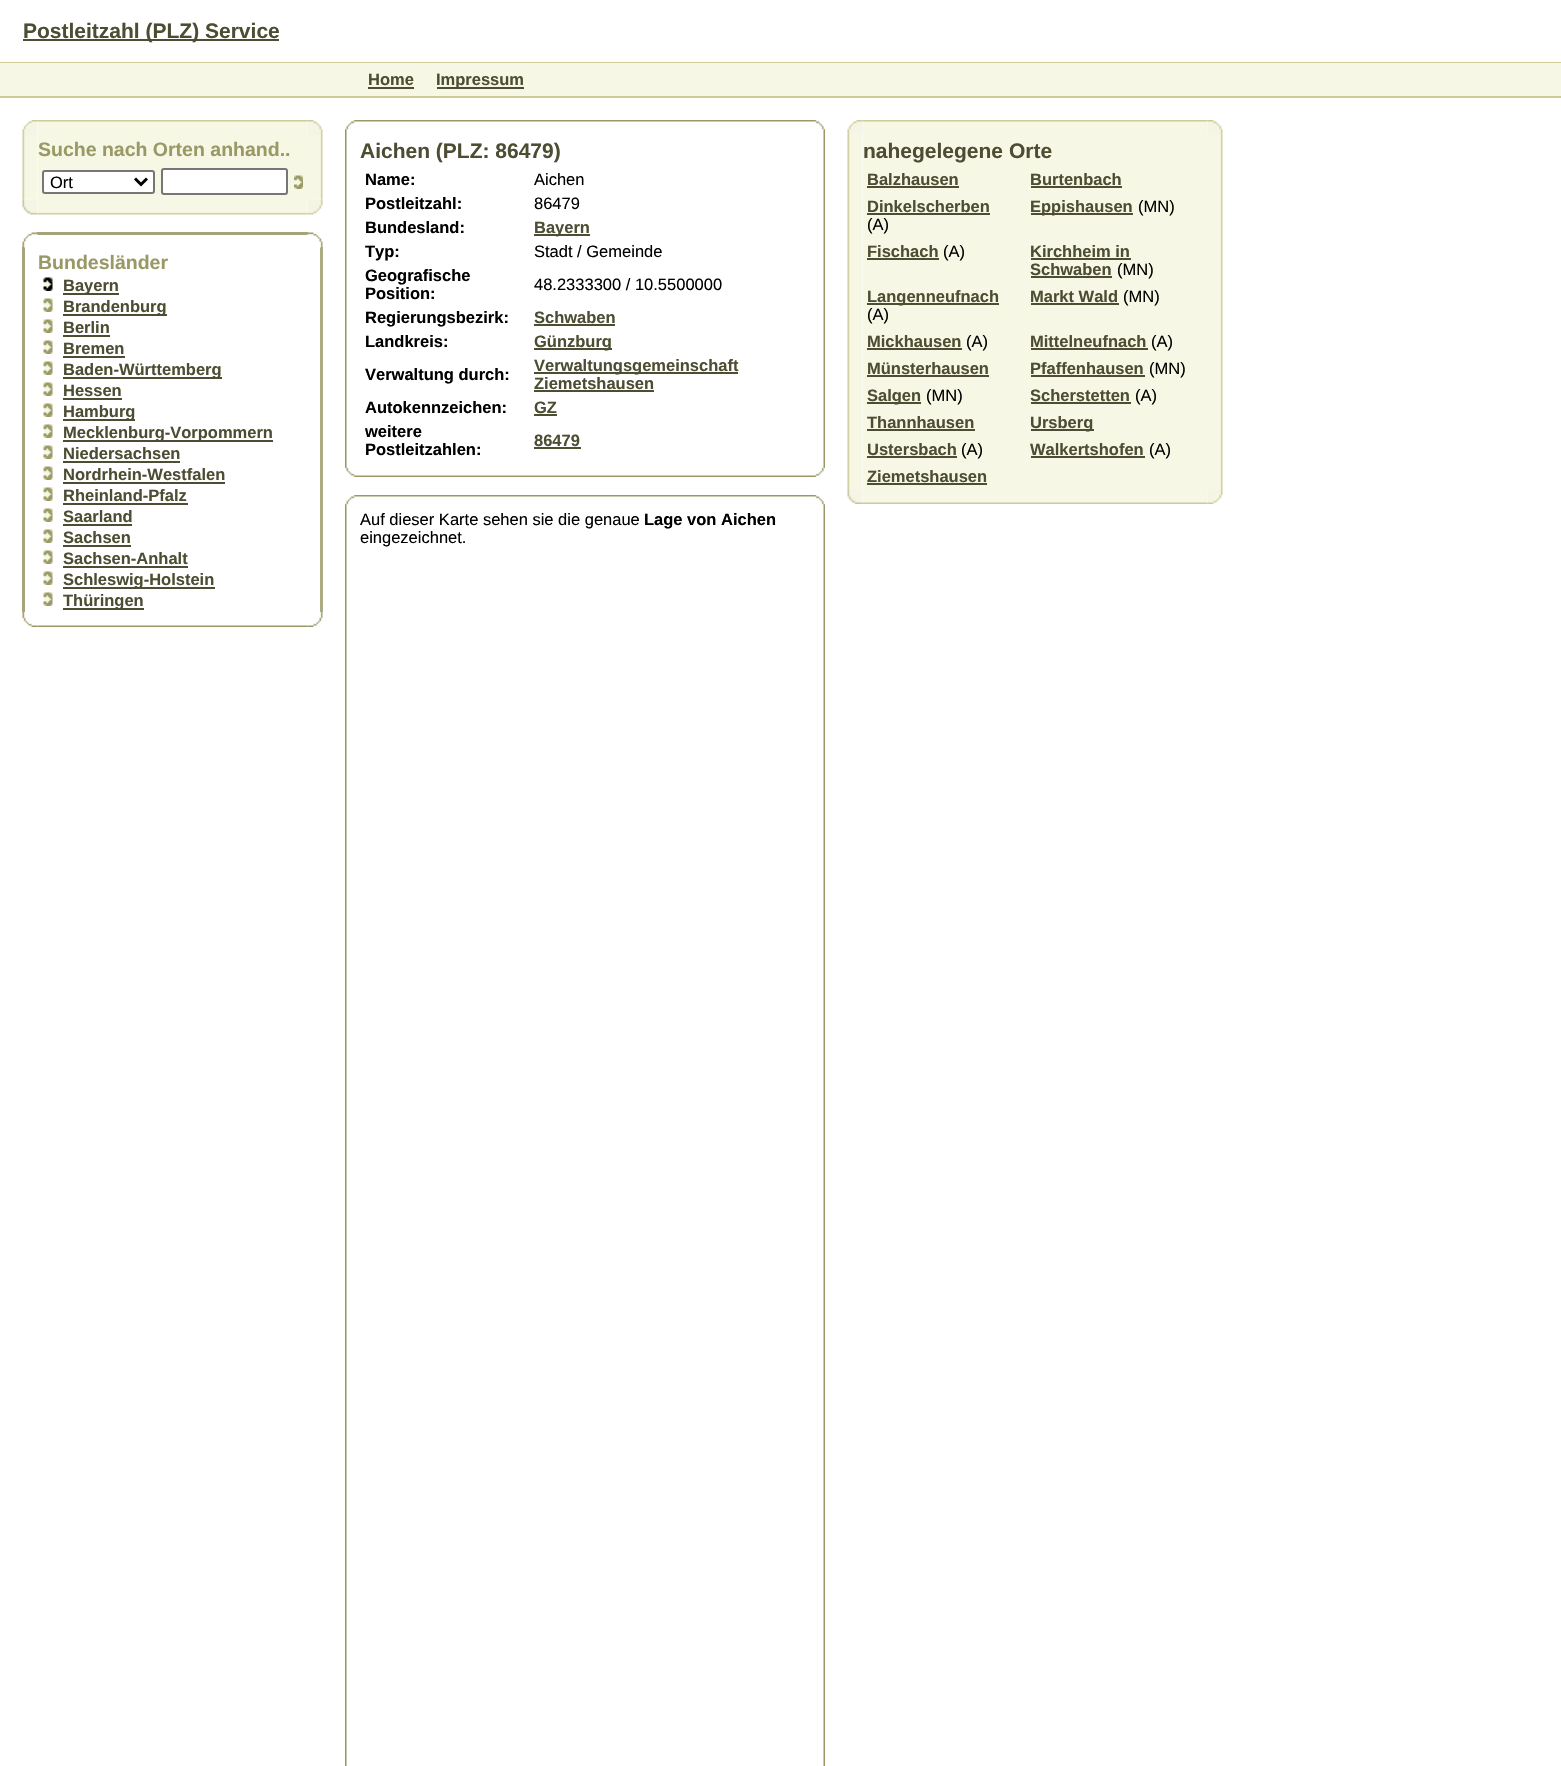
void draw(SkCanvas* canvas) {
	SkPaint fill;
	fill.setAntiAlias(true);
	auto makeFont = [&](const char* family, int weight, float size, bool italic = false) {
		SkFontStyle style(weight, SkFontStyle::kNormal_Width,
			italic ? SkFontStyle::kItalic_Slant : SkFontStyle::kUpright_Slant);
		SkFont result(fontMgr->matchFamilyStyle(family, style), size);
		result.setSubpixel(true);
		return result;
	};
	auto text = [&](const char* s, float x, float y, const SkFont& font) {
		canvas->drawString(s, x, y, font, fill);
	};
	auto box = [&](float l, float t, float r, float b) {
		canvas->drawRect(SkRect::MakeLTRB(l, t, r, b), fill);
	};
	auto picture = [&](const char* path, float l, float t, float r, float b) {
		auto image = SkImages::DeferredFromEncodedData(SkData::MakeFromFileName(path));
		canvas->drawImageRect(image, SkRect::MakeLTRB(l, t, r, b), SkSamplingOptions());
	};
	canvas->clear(0xFFFFFFFF);
	fill.setColor(0xFF4D4D33);
	box(23, 39, 279, 41);
	fill.setColor(0xFFCCCC99);
	box(0, 62, 1561, 63);
	fill.setColor(0xFFF7F7E5);
	box(0, 63, 1561, 96);
	fill.setColor(0xFF4D4D33);
	box(368, 87, 414, 89);
	box(437, 87, 524, 89);
	fill.setColor(0xFFCCCC99);
	box(0, 96, 1561, 98);
	picture("image1.png", 37, 120, 308, 135);
	picture("image0.png", 22, 120, 38, 135);
	picture("image2.png", 307, 120, 323, 135);
	picture("image3.png", 22, 135, 38, 200);
	fill.setColor(0xFFF7F7E5);
	box(38, 135, 308, 200);
	fill.setColor(0xFFFFFFFF);
	canvas->drawRoundRect(SkRect::MakeLTRB(43, 171, 154, 193), 2, 2, fill);
	fill.setStyle(SkPaint::kStroke_Style);
	fill.setStrokeWidth(2);
	fill.setColor(0xFF767676);
	canvas->drawRoundRect(SkRect::MakeLTRB(43, 171, 154, 193), 2, 2, fill);
	fill.setStrokeWidth(3);
	fill.setColor(0xFF000000);
	canvas->drawPath(SkPathBuilder().moveTo(135, 178.5f).lineTo(141, 184.5f).lineTo(147, 178.5f).detach(), fill);
	fill.setStyle(SkPaint::kFill_Style);
	fill.setColor(0xFFFFFFFF);
	canvas->drawRoundRect(SkRect::MakeLTRB(162, 169, 287, 194), 2, 2, fill);
	fill.setStyle(SkPaint::kStroke_Style);
	fill.setStrokeWidth(2);
	fill.setColor(0xFF767676);
	canvas->drawRoundRect(SkRect::MakeLTRB(162, 169, 287, 194), 2, 2, fill);
	picture("image4.png", 294, 175, 303, 189);
	picture("image5.png", 308, 135, 323, 200);
	picture("image7.png", 37, 199, 308, 215);
	picture("image6.png", 22, 199, 38, 215);
	picture("image8.png", 307, 199, 323, 215);
	fill.setStyle(SkPaint::kFill_Style);
	fill.setColor(0xFFA5A579);
	box(37, 232, 308, 235);
	box(22, 247, 25, 612);
	picture("image9.png", 22, 232, 38, 248);
	fill.setColor(0xFFACAC82);
	box(320, 247, 323, 612);
	picture("image10.png", 307, 232, 323, 248);
	picture("image11.png", 43, 277, 53, 291);
	fill.setColor(0xFF4D4D33);
	box(63, 293, 119, 295);
	picture("image12.png", 43, 298, 53, 312);
	box(63, 314, 167, 316);
	picture("image12.png", 43, 319, 53, 333);
	box(63, 335, 110, 337);
	picture("image12.png", 43, 340, 53, 354);
	box(63, 356, 125, 358);
	picture("image12.png", 43, 361, 53, 375);
	box(63, 377, 222, 379);
	picture("image12.png", 43, 382, 53, 396);
	box(63, 398, 122, 400);
	picture("image12.png", 43, 403, 53, 417);
	box(63, 419, 135, 421);
	picture("image12.png", 43, 424, 53, 438);
	box(63, 440, 273, 442);
	picture("image12.png", 43, 445, 53, 459);
	box(63, 461, 180, 463);
	picture("image12.png", 43, 466, 53, 480);
	box(63, 482, 225, 484);
	picture("image12.png", 43, 487, 53, 501);
	box(63, 503, 188, 505);
	picture("image12.png", 43, 508, 53, 522);
	box(63, 524, 132, 526);
	picture("image12.png", 43, 529, 53, 543);
	box(63, 545, 131, 547);
	picture("image12.png", 43, 550, 53, 564);
	box(63, 566, 188, 568);
	picture("image12.png", 43, 571, 53, 585);
	box(63, 587, 215, 589);
	picture("image12.png", 43, 592, 53, 606);
	box(63, 608, 144, 610);
	picture("image14.png", 37, 625, 308, 627);
	picture("image13.png", 22, 612, 38, 627);
	picture("image15.png", 307, 612, 323, 627);
	picture("image16.png", 345, 120, 360, 135);
	picture("image17.png", 360, 120, 810, 122);
	picture("image18.png", 810, 120, 825, 135);
	picture("image19.png", 345, 135, 347, 462);
	box(534, 234, 590, 236);
	box(534, 324, 615, 326);
	box(534, 348, 612, 350);
	box(534, 372, 738, 374);
	box(534, 390, 654, 392);
	box(534, 414, 557, 416);
	box(534, 447, 581, 449);
	picture("image20.png", 823, 135, 825, 462);
	picture("image21.png", 345, 462, 360, 477);
	picture("image22.png", 360, 475, 810, 477);
	picture("image23.png", 810, 462, 825, 477);
	picture("image16.png", 345, 495, 360, 510);
	picture("image17.png", 360, 495, 810, 497);
	picture("image18.png", 810, 495, 825, 510);
	picture("image24.png", 345, 510, 347, 1766);
	picture("image25.png", 823, 510, 825, 1766);
	picture("image26.png", 862, 120, 1208, 135);
	picture("image0.png", 847, 120, 863, 135);
	picture("image2.png", 1207, 120, 1223, 135);
	picture("image27.png", 847, 135, 863, 489);
	fill.setColor(0xFFF7F7E5);
	box(863, 135, 1208, 489);
	fill.setColor(0xFF4D4D33);
	box(867, 186, 959, 188);
	box(1031, 186, 1122, 188);
	box(867, 213, 990, 215);
	box(1031, 213, 1133, 215);
	box(867, 258, 939, 260);
	box(1031, 258, 1131, 260);
	box(1031, 276, 1112, 278);
	box(867, 303, 999, 305);
	box(1031, 303, 1119, 305);
	box(867, 348, 962, 350);
	box(1031, 348, 1148, 350);
	box(867, 375, 989, 377);
	box(1031, 375, 1145, 377);
	box(867, 402, 921, 404);
	box(1031, 402, 1131, 404);
	box(867, 429, 975, 431);
	box(1031, 429, 1094, 431);
	box(867, 456, 957, 458);
	box(1031, 456, 1145, 458);
	box(867, 483, 987, 485);
	picture("image28.png", 1208, 135, 1223, 489);
	picture("image30.png", 862, 489, 1208, 504);
	picture("image29.png", 847, 489, 863, 504);
	picture("image31.png", 1207, 489, 1223, 504);
	auto font1 = makeFont("Liberation Sans", 700, 21);
	text("Postleitzahl (PLZ) Service", 23, 38, font1);
	auto font2 = makeFont("Liberation Sans", 700, 16.5f);
	text("Home", 368, 85, font2);
	text("Impressum", 436, 85, font2);
	auto font3 = makeFont("Liberation Sans", 700, 19.5f);
	fill.setColor(0xFF999966);
	text("Suche nach Orten anhand..", 38, 156, font3);
	auto font4 = makeFont("Liberation Sans", 400, 16.5f);
	fill.setColor(0xFF000000);
	text("Ort", 50, 188, font4);
	fill.setColor(0xFF999966);
	text("Bundesländer", 38, 269, font3);
	fill.setColor(0xFF4D4D33);
	text("Bayern", 63, 291, font2);
	text("Brandenburg", 63, 312, font2);
	text("Berlin", 63, 333, font2);
	text("Bremen", 63, 354, font2);
	text("Baden-Württemberg", 63, 375, font2);
	text("Hessen", 63, 396, font2);
	text("Hamburg", 63, 417, font2);
	text("Mecklenburg-Vorpommern", 63, 438, font2);
	text("Niedersachsen", 63, 459, font2);
	text("Nordrhein-Westfalen", 63, 480, font2);
	text("Rheinland-Pfalz", 63, 501, font2);
	text("Saarland", 63, 522, font2);
	text("Sachsen", 63, 543, font2);
	text("Sachsen-Anhalt", 63, 564, font2);
	text("Schleswig-Holstein", 63, 585, font2);
	text("Thüringen", 63, 606, font2);
	text("Aichen (PLZ: 86479)", 360, 158, font1);
	fill.setColor(0xFF000000);
	text("Name:", 365, 185, font2);
	text("Aichen", 534, 185, font4);
	text("Postleitzahl:", 365, 209, font2);
	text("86479", 534, 209, font4);
	text("Bundesland:", 365, 233, font2);
	fill.setColor(0xFF4D4D33);
	text("Bayern", 534, 233, font2);
	fill.setColor(0xFF000000);
	text("Typ:", 365, 257, font2);
	text("Stadt / Gemeinde", 534, 257, font4);
	text("Geografische", 365, 281, font2);
	text("Position:", 365, 299, font2);
	text("48.2333300 / 10.5500000", 534, 290, font4);
	text("Regierungsbezirk:", 365, 323, font2);
	fill.setColor(0xFF4D4D33);
	text("Schwaben", 534, 323, font2);
	fill.setColor(0xFF000000);
	text("Landkreis:", 365, 347, font2);
	fill.setColor(0xFF4D4D33);
	text("Günzburg", 534, 347, font2);
	fill.setColor(0xFF000000);
	text("Verwaltung durch:", 365, 380, font2);
	fill.setColor(0xFF4D4D33);
	text("Verwaltungsgemeinschaft", 534, 371, font2);
	text("Ziemetshausen", 534, 389, font2);
	fill.setColor(0xFF000000);
	text("Autokennzeichen:", 365, 413, font2);
	fill.setColor(0xFF4D4D33);
	text("GZ", 534, 413, font2);
	fill.setColor(0xFF000000);
	text("weitere", 365, 437, font2);
	text("Postleitzahlen:", 365, 455, font2);
	fill.setColor(0xFF4D4D33);
	text("86479", 534, 446, font2);
	fill.setColor(0xFF000000);
	text("Auf dieser Karte sehen sie die genaue", 360, 525, font4);
	text("Lage von Aichen", 644, 525, font2);
	text("eingezeichnet.", 360, 543, font4);
	fill.setColor(0xFF4D4D33);
	text("nahegelegene Orte", 863, 158, font1);
	text("Balzhausen", 867, 185, font2);
	text("Burtenbach", 1030, 185, font2);
	text("Dinkelscherben", 867, 212, font2);
	fill.setColor(0xFF000000);
	text("(A)", 867, 230, font4);
	fill.setColor(0xFF4D4D33);
	text("Eppishausen", 1030, 212, font2);
	fill.setColor(0xFF000000);
	text("(MN)", 1138, 212, font4);
	fill.setColor(0xFF4D4D33);
	text("Fischach", 867, 257, font2);
	fill.setColor(0xFF000000);
	text("(A)", 943, 257, font4);
	fill.setColor(0xFF4D4D33);
	text("Kirchheim in", 1030, 257, font2);
	text("Schwaben", 1030, 275, font2);
	fill.setColor(0xFF000000);
	text("(MN)", 1117, 275, font4);
	fill.setColor(0xFF4D4D33);
	text("Langenneufnach", 867, 302, font2);
	fill.setColor(0xFF000000);
	text("(A)", 867, 320, font4);
	fill.setColor(0xFF4D4D33);
	text("Markt Wald", 1030, 302, font2);
	fill.setColor(0xFF000000);
	text("(MN)", 1123, 302, font4);
	fill.setColor(0xFF4D4D33);
	text("Mickhausen", 867, 347, font2);
	fill.setColor(0xFF000000);
	text("(A)", 966, 347, font4);
	fill.setColor(0xFF4D4D33);
	text("Mittelneufnach", 1030, 347, font2);
	fill.setColor(0xFF000000);
	text("(A)", 1151, 347, font4);
	fill.setColor(0xFF4D4D33);
	text("Münsterhausen", 867, 374, font2);
	text("Pfaffenhausen", 1030, 374, font2);
	fill.setColor(0xFF000000);
	text("(MN)", 1149, 374, font4);
	fill.setColor(0xFF4D4D33);
	text("Salgen", 867, 401, font2);
	fill.setColor(0xFF000000);
	text("(MN)", 926, 401, font4);
	fill.setColor(0xFF4D4D33);
	text("Scherstetten", 1030, 401, font2);
	fill.setColor(0xFF000000);
	text("(A)", 1135, 401, font4);
	fill.setColor(0xFF4D4D33);
	text("Thannhausen", 867, 428, font2);
	text("Ursberg", 1030, 428, font2);
	text("Ustersbach", 867, 455, font2);
	fill.setColor(0xFF000000);
	text("(A)", 961, 455, font4);
	fill.setColor(0xFF4D4D33);
	text("Walkertshofen", 1030, 455, font2);
	fill.setColor(0xFF000000);
	text("(A)", 1149, 455, font4);
	fill.setColor(0xFF4D4D33);
	text("Ziemetshausen", 867, 482, font2);
}
